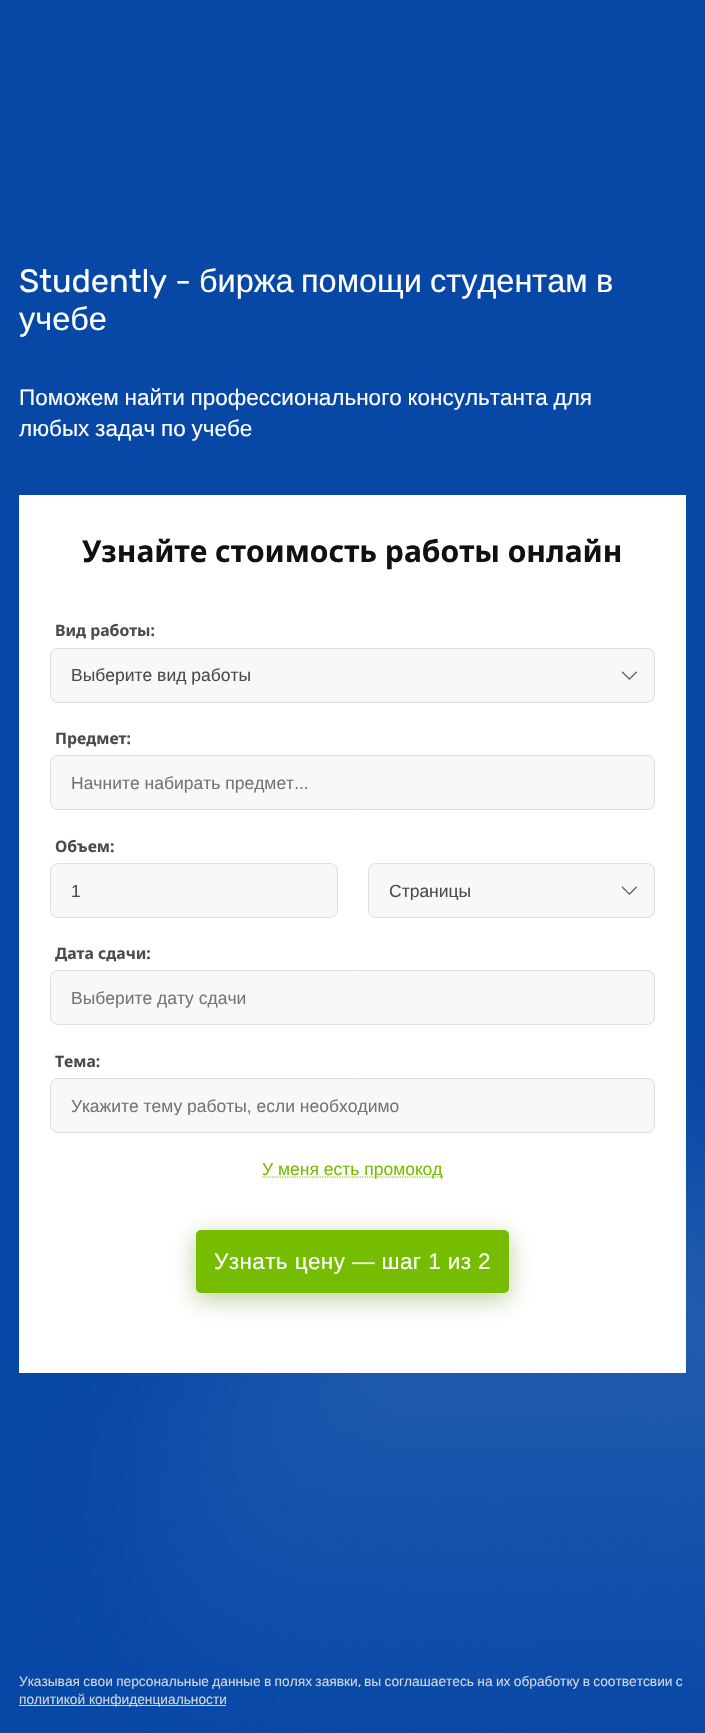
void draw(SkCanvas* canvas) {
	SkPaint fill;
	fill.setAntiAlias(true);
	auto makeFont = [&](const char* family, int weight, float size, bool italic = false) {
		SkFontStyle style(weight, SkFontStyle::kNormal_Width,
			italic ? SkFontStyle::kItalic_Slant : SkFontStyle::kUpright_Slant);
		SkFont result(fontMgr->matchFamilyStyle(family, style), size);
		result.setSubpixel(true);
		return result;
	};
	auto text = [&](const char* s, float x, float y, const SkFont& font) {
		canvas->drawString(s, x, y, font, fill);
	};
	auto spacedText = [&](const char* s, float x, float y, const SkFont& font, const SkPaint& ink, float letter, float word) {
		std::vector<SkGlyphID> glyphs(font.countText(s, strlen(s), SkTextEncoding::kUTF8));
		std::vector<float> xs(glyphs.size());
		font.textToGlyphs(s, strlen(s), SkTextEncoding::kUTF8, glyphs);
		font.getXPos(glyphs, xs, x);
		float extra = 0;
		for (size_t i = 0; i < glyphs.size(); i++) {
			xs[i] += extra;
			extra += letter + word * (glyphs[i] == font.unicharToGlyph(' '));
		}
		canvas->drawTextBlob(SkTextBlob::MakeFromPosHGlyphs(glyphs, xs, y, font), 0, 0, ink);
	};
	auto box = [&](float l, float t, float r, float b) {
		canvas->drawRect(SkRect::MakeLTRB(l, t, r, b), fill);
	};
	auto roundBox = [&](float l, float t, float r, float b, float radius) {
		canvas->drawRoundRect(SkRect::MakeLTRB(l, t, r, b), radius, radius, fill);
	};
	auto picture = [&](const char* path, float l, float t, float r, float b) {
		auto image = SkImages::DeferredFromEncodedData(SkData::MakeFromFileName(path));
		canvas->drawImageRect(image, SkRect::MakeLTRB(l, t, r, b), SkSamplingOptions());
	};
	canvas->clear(0xFFFFFFFF);
	picture("image0.png", 0, 0, 705, 1733);
	fill.setColor(0xFFFFFFFF);
	box(19, 495, 686, 1373);
	fill.setColor(0xFFF8F8F8);
	roundBox(50, 648, 655, 703, 8);
	picture("image1.png", 621, 671, 637, 680);
	fill.setStyle(SkPaint::kStroke_Style);
	fill.setStrokeWidth(1);
	fill.setColor(0x26484C52);
	canvas->drawRoundRect(SkRect::MakeLTRB(50.5f, 648.5f, 654.5f, 702.5f), 7.5f, 7.5f, fill);
	fill.setStyle(SkPaint::kFill_Style);
	fill.setColor(0xFFF8F8F8);
	roundBox(50, 755, 655, 810, 8);
	fill.setStyle(SkPaint::kStroke_Style);
	fill.setColor(0x26484C52);
	canvas->drawRoundRect(SkRect::MakeLTRB(50.5f, 755.5f, 654.5f, 809.5f), 7.5f, 7.5f, fill);
	fill.setStyle(SkPaint::kFill_Style);
	fill.setColor(0xFFF8F8F8);
	roundBox(50, 863, 338, 918, 8);
	fill.setStyle(SkPaint::kStroke_Style);
	fill.setColor(0x26484C52);
	canvas->drawRoundRect(SkRect::MakeLTRB(50.5f, 863.5f, 337.5f, 917.5f), 7.5f, 7.5f, fill);
	fill.setStyle(SkPaint::kFill_Style);
	fill.setColor(0xFFF8F8F8);
	roundBox(368, 863, 655, 918, 8);
	picture("image1.png", 621, 886, 637, 895);
	fill.setStyle(SkPaint::kStroke_Style);
	fill.setColor(0x26484C52);
	canvas->drawRoundRect(SkRect::MakeLTRB(368.5f, 863.5f, 654.5f, 917.5f), 7.5f, 7.5f, fill);
	fill.setStyle(SkPaint::kFill_Style);
	fill.setColor(0xFFF8F8F8);
	roundBox(50, 970, 655, 1025, 8);
	fill.setStyle(SkPaint::kStroke_Style);
	fill.setColor(0x26484C52);
	canvas->drawRoundRect(SkRect::MakeLTRB(50.5f, 970.5f, 654.5f, 1024.5f), 7.5f, 7.5f, fill);
	fill.setStyle(SkPaint::kFill_Style);
	fill.setColor(0xFFF8F8F8);
	roundBox(50, 1078, 655, 1133, 8);
	fill.setStyle(SkPaint::kStroke_Style);
	fill.setColor(0x26484C52);
	canvas->drawRoundRect(SkRect::MakeLTRB(50.5f, 1078.5f, 654.5f, 1132.5f), 7.5f, 7.5f, fill);
	fill.setStrokeWidth(1.2f);
	fill.setColor(0xFF76BC00);
	fill.setPathEffect(SkDashPathEffect::Make({{1.25f, 1.25f}}, 0));
	canvas->drawPath(SkPathBuilder().moveTo(262, 1177).lineTo(443, 1177).detach(), fill);
	fill.setPathEffect(nullptr);
	fill.setStyle(SkPaint::kFill_Style);
	fill.setColor(0x8A81A446);
	fill.setMaskFilter(SkMaskFilter::MakeBlur(kNormal_SkBlurStyle, 12.5f));
	canvas->drawRoundRect(SkRect::MakeLTRB(196, 1236, 509, 1299), 5, 5, fill);
	fill.setMaskFilter(nullptr);
	fill.setColor(0xFF76BC00);
	roundBox(196, 1230, 509, 1293, 5);
	fill.setColor(0xFFD1D5DC);
	box(19, 1705, 226, 1706);
	auto font1 = makeFont("Rubik", 300, 32.5f);
	fill.setColor(0xFFFFFFFF);
	text("Studently -", 19, 292, font1);
	auto font2 = makeFont("Liberation Sans", 400, 32.5f);
	text("биржа", 199, 292, font2);
	text("помощи", 301, 292, font2);
	text("студентам", 430, 292, font2);
	text("в", 596, 292, font2);
	text("учебе", 19, 330, font2);
	auto font3 = makeFont("Liberation Sans", 400, 22.5f);
	spacedText("Поможем найти профессионального консультанта для", 19, 405, font3, fill, 0, -0.5f);
	spacedText("любых задач по учебе", 19, 436, font3, fill, 0, -0.5f);
	auto font4 = makeFont("Noto Sans", 700, 30);
	fill.setColor(0xFF111111);
	text("Узнайте стоимость работы онлайн", 82, 562, font4);
	auto font5 = makeFont("Noto Sans", 700, 15.75f);
	fill.setColor(0xFF484C51);
	text("Вид работы:", 55, 636, font5);
	auto font6 = makeFont("Liberation Sans", 400, 17.5f);
	text("Выберите вид работы", 71, 681, font6);
	text("Предмет:", 55, 744, font5);
	fill.setColor(0xFF757575);
	text("Начните набирать предмет...", 71, 789, font6);
	fill.setColor(0xFF484C51);
	text("Объем:", 55, 852, font5);
	text("1", 71, 897, font6);
	canvas->save();
	canvas->clipRect(SkRect::MakeLTRB(389, 880, 604, 900));
	text("Страницы", 389, 897, font6);
	canvas->restore();
	text("Дата сдачи:", 55, 959, font5);
	fill.setColor(0xFF757575);
	text("Выберите дату сдачи", 71, 1004, font6);
	fill.setColor(0xFF484C51);
	text("Тема:", 55, 1067, font5);
	canvas->save();
	canvas->clipRect(SkRect::MakeLTRB(71, 1095, 634, 1115));
	fill.setColor(0xFF757575);
	text("Укажите тему работы, если необходимо", 71, 1112, font6);
	canvas->restore();
	fill.setColor(0xFF76BC00);
	text("У меня есть промокод", 262, 1175, font6);
	fill.setColor(0xFFFFFFFF);
	spacedText("Узнать цену — шаг 1 из 2", 214, 1269, font3, fill, 0.4f, 0);
	auto font7 = makeFont("Liberation Sans", 400, 13.75f);
	fill.setColor(0xFFD1D5DC);
	spacedText("Указывая свои персональные данные в полях заявки", 19, 1686, font7, fill, 0, -0.5f);
	auto font8 = makeFont("Rubik", 300, 13.75f);
	text(",", 358, 1686, font8);
	spacedText("вы соглашаетесь на их обработку в соответсвии с", 364, 1686, font7, fill, 0, -0.5f);
	text("политикой конфиденциальности", 19, 1704, font7);
}
